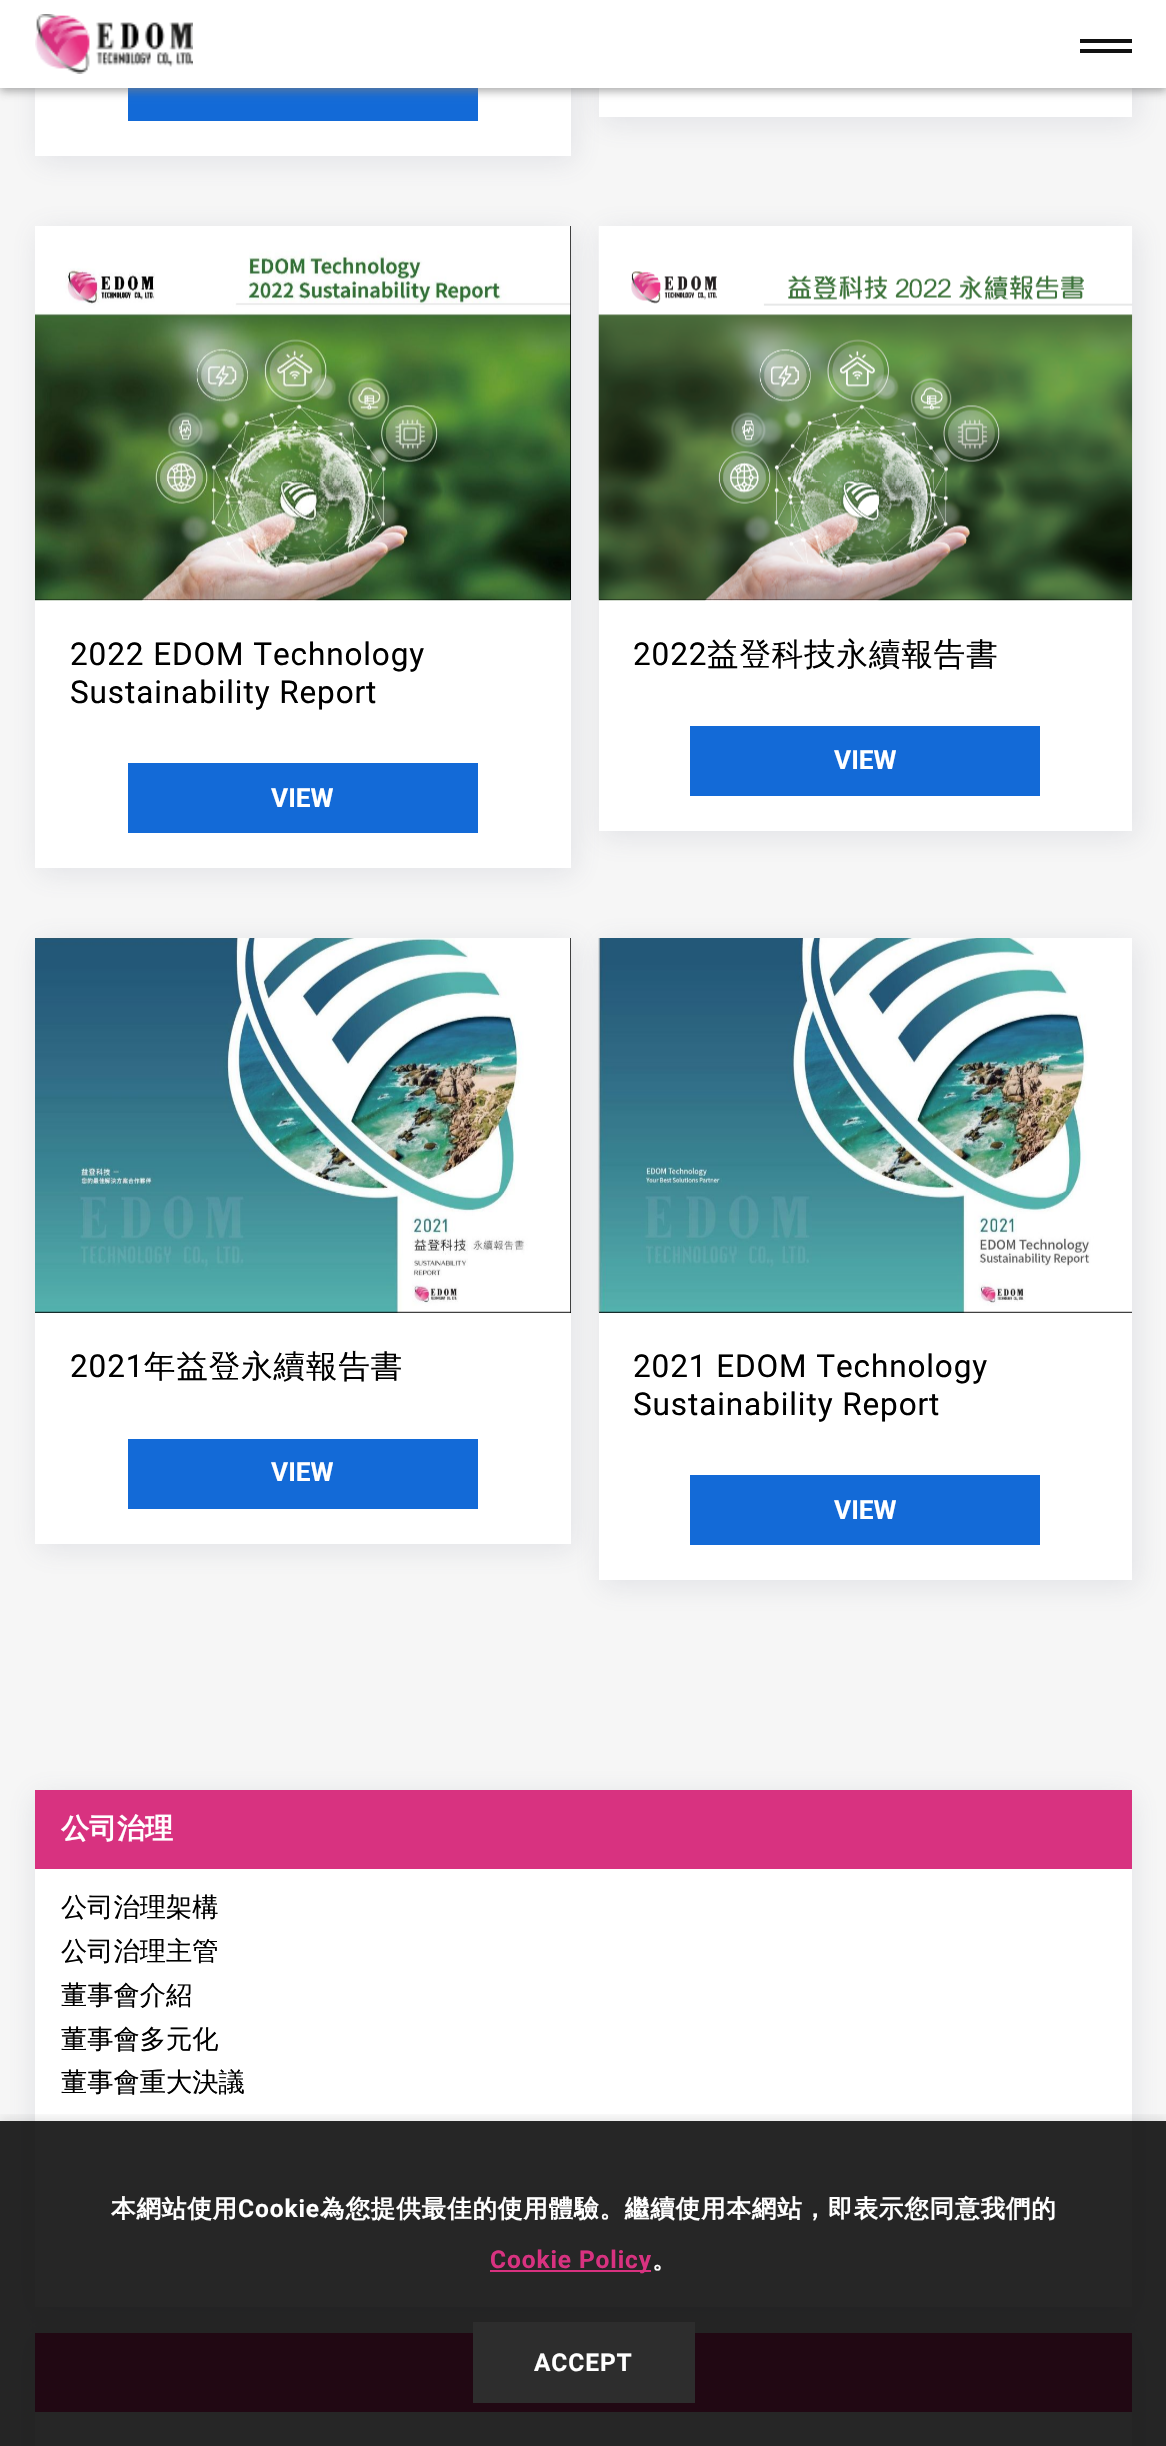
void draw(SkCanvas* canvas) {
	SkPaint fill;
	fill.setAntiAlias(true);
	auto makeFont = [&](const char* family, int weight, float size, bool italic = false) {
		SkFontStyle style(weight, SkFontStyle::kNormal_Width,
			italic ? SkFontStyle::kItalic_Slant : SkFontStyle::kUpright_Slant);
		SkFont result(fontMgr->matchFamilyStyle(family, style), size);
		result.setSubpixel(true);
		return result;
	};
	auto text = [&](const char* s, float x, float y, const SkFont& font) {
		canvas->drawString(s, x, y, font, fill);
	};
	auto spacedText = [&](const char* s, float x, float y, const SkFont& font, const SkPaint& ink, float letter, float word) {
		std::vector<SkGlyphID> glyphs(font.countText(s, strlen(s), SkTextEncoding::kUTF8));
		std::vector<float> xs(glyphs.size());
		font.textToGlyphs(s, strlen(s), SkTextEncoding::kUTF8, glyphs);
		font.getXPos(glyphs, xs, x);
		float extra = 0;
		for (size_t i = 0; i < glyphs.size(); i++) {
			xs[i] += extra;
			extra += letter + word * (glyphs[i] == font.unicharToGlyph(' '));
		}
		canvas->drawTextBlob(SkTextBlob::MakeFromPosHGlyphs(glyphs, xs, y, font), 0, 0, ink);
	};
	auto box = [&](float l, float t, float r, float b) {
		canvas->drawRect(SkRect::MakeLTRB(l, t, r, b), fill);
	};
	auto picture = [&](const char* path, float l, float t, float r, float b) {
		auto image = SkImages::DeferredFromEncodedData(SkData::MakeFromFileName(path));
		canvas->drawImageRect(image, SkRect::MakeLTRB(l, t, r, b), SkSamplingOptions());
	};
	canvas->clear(0xFFF6F6F6);
	fill.setColor(0x26626C84);
	fill.setMaskFilter(SkMaskFilter::MakeBlur(kNormal_SkBlurStyle, 13));
	canvas->drawRect(SkRect::MakeLTRB(39, -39, 574, 161), fill);
	fill.setMaskFilter(nullptr);
	fill.setColor(0xFFFFFFFF);
	box(35, 88, 571, 156);
	fill.setColor(0xFF136AD7);
	box(128, 88, 478, 121);
	fill.setColor(0x26626C84);
	fill.setMaskFilter(SkMaskFilter::MakeBlur(kNormal_SkBlurStyle, 13));
	canvas->drawRect(SkRect::MakeLTRB(602, -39, 1136, 123), fill);
	fill.setMaskFilter(nullptr);
	fill.setColor(0xFFFFFFFF);
	box(599, 88, 1132, 117);
	fill.setColor(0xAD7E7E7E);
	fill.setMaskFilter(SkMaskFilter::MakeBlur(kNormal_SkBlurStyle, 4.5f));
	canvas->drawRect(SkRect::MakeLTRB(0, 4, 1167, 91), fill);
	fill.setMaskFilter(nullptr);
	fill.setColor(0xFFFFFFFF);
	box(0, 0, 1166, 88);
	picture("image0.png", 35, 14, 193, 74);
	fill.setColor(0xFF111111);
	box(1080, 39, 1132, 43);
	box(1080, 49, 1132, 53);
	fill.setColor(0x26626C84);
	fill.setMaskFilter(SkMaskFilter::MakeBlur(kNormal_SkBlurStyle, 13));
	canvas->drawRect(SkRect::MakeLTRB(39, 231, 574, 873), fill);
	fill.setMaskFilter(nullptr);
	fill.setColor(0xFFFFFFFF);
	box(35, 600, 571, 868);
	fill.setColor(0x26626C84);
	fill.setMaskFilter(SkMaskFilter::MakeBlur(kNormal_SkBlurStyle, 13));
	canvas->drawRect(SkRect::MakeLTRB(602, 231, 1136, 837), fill);
	fill.setMaskFilter(nullptr);
	fill.setColor(0xFF000000);
	box(35, 226, 571, 600);
	picture("image1.png", 35, 226, 571, 601);
	fill.setColor(0xFF136AD7);
	box(128, 763, 478, 833);
	fill.setColor(0xFFFFFFFF);
	box(599, 600, 1132, 831);
	fill.setColor(0xFF000000);
	box(599, 599, 1132, 600);
	picture("image2.png", 598, 226, 1133, 601);
	fill.setColor(0xFF136AD7);
	box(690, 726, 1040, 796);
	fill.setColor(0x26626C84);
	fill.setMaskFilter(SkMaskFilter::MakeBlur(kNormal_SkBlurStyle, 13));
	canvas->drawRect(SkRect::MakeLTRB(39, 943, 574, 1549), fill);
	fill.setMaskFilter(nullptr);
	fill.setColor(0xFFFFFFFF);
	box(35, 1313, 571, 1544);
	fill.setColor(0x26626C84);
	fill.setMaskFilter(SkMaskFilter::MakeBlur(kNormal_SkBlurStyle, 13));
	canvas->drawRect(SkRect::MakeLTRB(602, 943, 1136, 1586), fill);
	fill.setMaskFilter(nullptr);
	fill.setColor(0xFF000000);
	box(35, 938, 571, 1313);
	picture("image3.png", 35, 938, 571, 1313);
	fill.setColor(0xFF136AD7);
	box(128, 1439, 478, 1509);
	fill.setColor(0xFFFFFFFF);
	box(599, 1313, 1132, 1580);
	fill.setColor(0xFF000000);
	box(599, 1311, 1132, 1313);
	picture("image4.png", 598, 938, 1132, 1313);
	fill.setColor(0xFF136AD7);
	box(690, 1475, 1040, 1545);
	fill.setColor(0x26626C84);
	fill.setMaskFilter(SkMaskFilter::MakeBlur(kNormal_SkBlurStyle, 13));
	canvas->drawRect(SkRect::MakeLTRB(35, 1796, 1132, 2312), fill);
	fill.setMaskFilter(nullptr);
	fill.setColor(0xFFD83280);
	box(35, 1790, 1132, 1869);
	fill.setColor(0xFFFFFFFF);
	box(35, 1869, 1132, 2307);
	fill.setColor(0x26626C84);
	fill.setMaskFilter(SkMaskFilter::MakeBlur(kNormal_SkBlurStyle, 13));
	canvas->drawRect(SkRect::MakeLTRB(35, 2338, 1132, 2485), fill);
	fill.setMaskFilter(nullptr);
	fill.setColor(0xFFD83280);
	box(35, 2333, 1132, 2412);
	fill.setColor(0xFFFFFFFF);
	box(35, 2412, 1132, 2446);
	canvas->save();
	canvas->clipRect(SkRect::MakeLTRB(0, 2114, 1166, 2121));
	fill.setColor(0x1A000000);
	fill.setMaskFilter(SkMaskFilter::MakeBlur(kNormal_SkBlurStyle, 5));
	canvas->drawRect(SkRect::MakeLTRB(0, 2118, 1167, 2443), fill);
	fill.setMaskFilter(nullptr);
	canvas->restore();
	fill.setColor(0xD9000000);
	box(0, 2121, 1166, 2446);
	fill.setColor(0xFFD83280);
	box(490, 2270, 651, 2272);
	fill.setColor(0xFF2D2D2D);
	box(473, 2322, 695, 2403);
	auto font1 = makeFont("Roboto", 400, 31.5f);
	fill.setColor(0xFF000000);
	spacedText("2022 EDOM Technology", 70, 665, font1, fill, 0.9f, 0);
	spacedText("Sustainability Report", 70, 703, font1, fill, 0.9f, 0);
	auto font2 = makeFont("Roboto", 700, 26.25f);
	fill.setColor(0xFFFFFFFF);
	text("VIEW", 271, 807, font2);
	fill.setColor(0xFF000000);
	spacedText("2022", 633, 665, font1, fill, 0.9f, 0);
	auto font3 = makeFont("WenQuanYi Zen Hei", 500, 31.5f);
	spacedText("益登科技永續報告書", 707, 665, font3, fill, 0.9f, 0);
	fill.setColor(0xFFFFFFFF);
	text("VIEW", 834, 769, font2);
	fill.setColor(0xFF000000);
	spacedText("2021", 70, 1377, font1, fill, 0.9f, 0);
	spacedText("年益登永續報告書", 144, 1377, font3, fill, 0.9f, 0);
	fill.setColor(0xFFFFFFFF);
	text("VIEW", 271, 1481, font2);
	fill.setColor(0xFF000000);
	spacedText("2021 EDOM Technology", 633, 1377, font1, fill, 0.9f, 0);
	spacedText("Sustainability Report", 633, 1415, font1, fill, 0.9f, 0);
	fill.setColor(0xFFFFFFFF);
	text("VIEW", 834, 1519, font2);
	auto font4 = makeFont("WenQuanYi Zen Hei", 700, 28);
	text("公司治理", 61, 1838, font4);
	auto font5 = makeFont("WenQuanYi Zen Hei", 500, 26.25f);
	fill.setColor(0xFF000000);
	text("公司治理架構", 61, 1916, font5);
	text("公司治理主管", 61, 1960, font5);
	text("董事會介紹", 61, 2004, font5);
	text("董事會多元化", 61, 2048, font5);
	text("董事會重大決議", 61, 2091, font5);
	auto font6 = makeFont("WenQuanYi Zen Hei", 700, 24.5f);
	fill.setColor(0xFFFFFFFF);
	spacedText("本網站使用", 111, 2217, font6, fill, 0.9f, 0);
	auto font7 = makeFont("Roboto", 700, 24.5f);
	spacedText("Cookie", 238, 2217, font7, fill, 0.9f, 0);
	spacedText("為您提供最佳的使用體驗。繼續使用本網站，即表示您同意我們的", 320, 2217, font6, fill, 0.9f, 0);
	fill.setColor(0xFFD83280);
	spacedText("Cookie Policy", 490, 2268, font7, fill, 0.9f, 0);
	fill.setColor(0xFFFFFFFF);
	spacedText("。", 652, 2268, font6, fill, 0.9f, 0);
	spacedText("ACCEPT", 534, 2371, font7, fill, 0.9f, 0);
}
